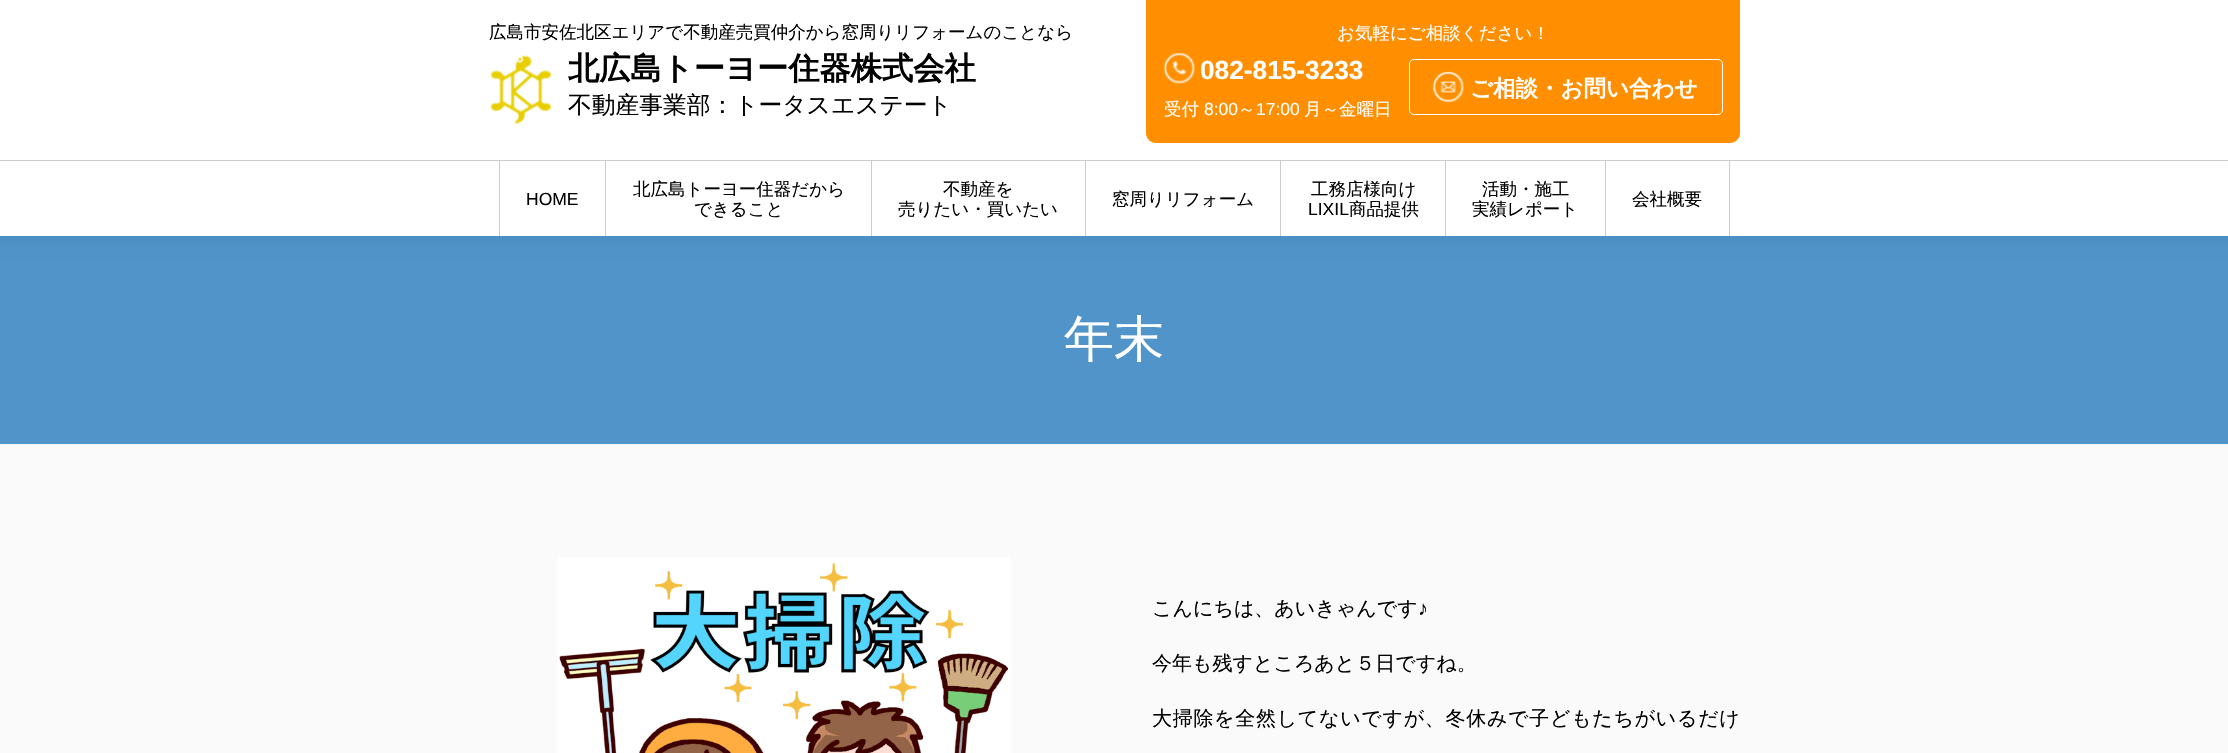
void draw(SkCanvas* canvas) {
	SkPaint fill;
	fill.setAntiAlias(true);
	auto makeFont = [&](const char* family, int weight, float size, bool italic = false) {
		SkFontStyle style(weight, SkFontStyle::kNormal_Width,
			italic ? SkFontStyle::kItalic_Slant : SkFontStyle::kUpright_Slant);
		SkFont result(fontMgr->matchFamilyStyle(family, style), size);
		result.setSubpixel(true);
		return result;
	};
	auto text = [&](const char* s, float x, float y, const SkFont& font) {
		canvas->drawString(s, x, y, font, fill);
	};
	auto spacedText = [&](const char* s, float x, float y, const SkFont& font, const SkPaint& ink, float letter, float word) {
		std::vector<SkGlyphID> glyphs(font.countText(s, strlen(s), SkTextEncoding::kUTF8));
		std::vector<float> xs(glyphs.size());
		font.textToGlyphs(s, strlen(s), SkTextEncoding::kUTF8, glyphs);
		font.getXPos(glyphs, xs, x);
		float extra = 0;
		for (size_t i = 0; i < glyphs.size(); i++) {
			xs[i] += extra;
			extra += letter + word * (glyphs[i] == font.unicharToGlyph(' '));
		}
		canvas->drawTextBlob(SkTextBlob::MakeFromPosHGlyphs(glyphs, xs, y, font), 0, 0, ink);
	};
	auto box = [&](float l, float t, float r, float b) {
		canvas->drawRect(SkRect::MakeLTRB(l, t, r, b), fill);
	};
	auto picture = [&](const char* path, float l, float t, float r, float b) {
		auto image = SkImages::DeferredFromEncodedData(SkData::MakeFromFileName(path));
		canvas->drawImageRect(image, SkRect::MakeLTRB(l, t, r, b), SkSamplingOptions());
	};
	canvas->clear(0xFFFAFAFA);
	fill.setColor(0xFF5094C9);
	box(0, 236, 2228, 444);
	fill.setColor(0x0A000000);
	fill.setMaskFilter(SkMaskFilter::MakeBlur(kNormal_SkBlurStyle, 6));
	canvas->drawRect(SkRect::MakeLTRB(-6, -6, 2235, 243), fill);
	fill.setMaskFilter(nullptr);
	fill.setColor(0xFFFFFFFF);
	box(0, 0, 2228, 236);
	fill.setColor(0xFFCCCCCC);
	box(0, 160, 2228, 161);
	picture("image0.png", 490, 55, 552, 124);
	fill.setColor(0xFFFF8F00);
	canvas->drawPath(SkPathBuilder().moveTo(1146, 0).lineTo(1740, 0).lineTo(1740, 133).cubicTo(1740, 138.5f, 1735.5f, 143, 1730, 143).lineTo(1156, 143).cubicTo(1150.5f, 143, 1146, 138.5f, 1146, 133).close().detach(), fill);
	picture("image1.png", 1163, 53, 1195, 84);
	fill.setStyle(SkPaint::kStroke_Style);
	fill.setStrokeWidth(1);
	fill.setColor(0xFFFFFFFF);
	canvas->drawRoundRect(SkRect::MakeLTRB(1409.5f, 59.5f, 1722.5f, 114.5f), 4.5f, 4.5f, fill);
	picture("image2.png", 1432, 71, 1464, 103);
	fill.setStyle(SkPaint::kFill_Style);
	fill.setColor(0xFFCCCCCC);
	box(499, 161, 500, 236);
	box(605, 161, 606, 236);
	box(871, 161, 872, 236);
	box(1085, 161, 1086, 236);
	box(1280, 161, 1281, 236);
	box(1445, 161, 1446, 236);
	box(1729, 161, 1730, 236);
	box(1605, 161, 1606, 236);
	picture("image3.png", 557, 557, 1011, 753);
	auto font1 = makeFont("WenQuanYi Zen Hei", 500, 17.5f);
	fill.setColor(0xFF000000);
	text("広島市安佐北区エリアで不動産売買仲介から窓周りリフォームのことなら", 489, 38, font1);
	auto font2 = makeFont("WenQuanYi Zen Hei", 700, 31.25f);
	text("北広島トーヨー住器株式会社", 568, 79, font2);
	auto font3 = makeFont("WenQuanYi Zen Hei", 500, 23.75f);
	text("不動産事業部：トータスエステート", 568, 113, font3);
	fill.setColor(0xFFFFFFFF);
	text("お気軽にご相談ください！", 1337, 39, font1);
	auto font4 = makeFont("Liberation Sans", 700, 26.25f);
	text("082-815-3233", 1200, 79, font4);
	text("受付", 1164, 115, font1);
	auto font5 = makeFont("Liberation Sans", 400, 17.5f);
	text("8:00", 1204, 115, font5);
	text("～", 1238, 115, font1);
	text("17:00", 1256, 115, font5);
	text("月～金曜日", 1304, 115, font1);
	auto font6 = makeFont("WenQuanYi Zen Hei", 700, 22.5f);
	text("ご相談・お問い合わせ", 1470, 96, font6);
	fill.setColor(0xFF000000);
	text("HOME", 526, 205, font5);
	text("北広島トーヨー住器だから", 633, 195, font1);
	text("できること", 694, 215, font1);
	text("不動産を", 943, 195, font1);
	text("売りたい・買いたい", 898, 215, font1);
	text("窓周りリフォーム", 1112, 205, font1);
	text("工務店様向け", 1311, 195, font1);
	text("LIXIL", 1308, 215, font5);
	text("商品提供", 1349, 215, font1);
	text("活動・施工", 1482, 195, font1);
	text("実績レポート", 1472, 215, font1);
	text("会社概要", 1632, 205, font1);
	auto font7 = makeFont("WenQuanYi Zen Hei", 500, 50);
	fill.setColor(0xFFFFFFFF);
	text("年末", 1064, 356, font7);
	auto font8 = makeFont("WenQuanYi Zen Hei", 500, 20);
	fill.setColor(0xFF000000);
	text("こんにちは、あいきゃんです", 1152, 615, font8);
	auto font9 = makeFont("Liberation Sans", 400, 20);
	text("♪", 1418, 615, font9);
	text("今年も残すところあと５日ですね。", 1152, 670, font8);
	spacedText("大掃除を全然してないですが、冬休みで子どもたちがいるだけ", 1152, 725, font8, fill, 0.7f, 0);
}
